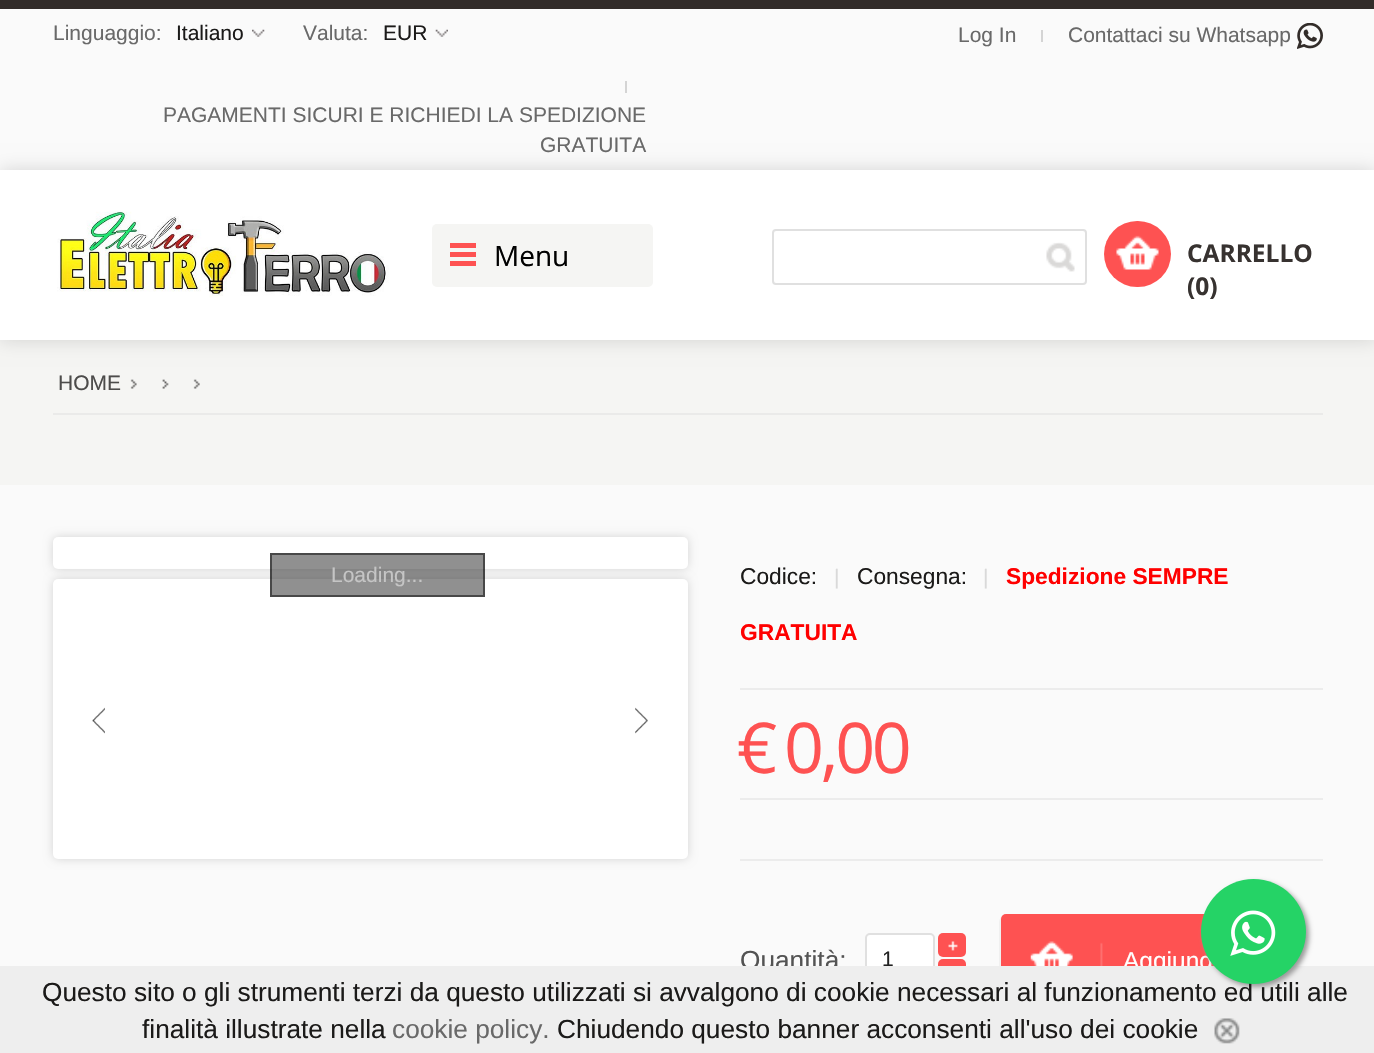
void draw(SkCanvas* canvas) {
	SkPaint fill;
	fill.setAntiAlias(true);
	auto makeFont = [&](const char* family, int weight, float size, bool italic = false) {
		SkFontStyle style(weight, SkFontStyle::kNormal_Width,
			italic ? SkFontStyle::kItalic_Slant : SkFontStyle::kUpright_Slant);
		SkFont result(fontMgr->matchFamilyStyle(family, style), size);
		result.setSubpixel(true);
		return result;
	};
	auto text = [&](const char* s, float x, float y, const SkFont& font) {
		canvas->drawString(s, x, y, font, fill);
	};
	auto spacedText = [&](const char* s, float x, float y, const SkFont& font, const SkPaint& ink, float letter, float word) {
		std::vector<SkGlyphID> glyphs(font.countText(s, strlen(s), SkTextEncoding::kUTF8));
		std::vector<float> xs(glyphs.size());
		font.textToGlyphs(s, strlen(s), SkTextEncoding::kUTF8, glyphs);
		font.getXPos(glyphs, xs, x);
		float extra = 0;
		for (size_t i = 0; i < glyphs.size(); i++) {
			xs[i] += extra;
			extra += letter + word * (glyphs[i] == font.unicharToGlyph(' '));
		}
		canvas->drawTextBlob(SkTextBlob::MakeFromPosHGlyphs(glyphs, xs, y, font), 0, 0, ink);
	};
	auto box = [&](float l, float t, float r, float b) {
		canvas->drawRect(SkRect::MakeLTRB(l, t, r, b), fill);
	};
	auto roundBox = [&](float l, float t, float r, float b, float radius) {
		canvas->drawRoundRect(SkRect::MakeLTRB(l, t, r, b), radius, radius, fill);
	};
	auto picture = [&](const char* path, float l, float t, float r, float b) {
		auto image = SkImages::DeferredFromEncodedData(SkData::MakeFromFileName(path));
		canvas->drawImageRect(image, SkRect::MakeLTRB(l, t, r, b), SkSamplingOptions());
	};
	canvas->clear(0xFFFAFAFA);
	fill.setColor(0xFFFFFFFF);
	box(0, 170, 1374, 340);
	fill.setColor(0xFF322C29);
	box(0, 0, 1374, 9);
	picture("image0.png", 252, 29, 265, 37);
	picture("image1.png", 435, 29, 448, 37);
	fill.setColor(0xFFD4D4D4);
	box(625, 81, 627, 93);
	box(1041, 30, 1043, 42);
	picture("image2.png", 1297, 23, 1323, 49);
	fill.setColor(0xFFF5F5F3);
	box(0, 340, 1374, 485);
	canvas->save();
	canvas->clipPath(SkPathBuilder(SkPathFillType::kEvenOdd).moveTo(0, 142).lineTo(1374, 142).lineTo(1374, 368).lineTo(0, 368).close().moveTo(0, 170).lineTo(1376, 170).lineTo(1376, 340).lineTo(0, 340).close().detach(), true);
	fill.setColor(0x26000000);
	fill.setMaskFilter(SkMaskFilter::MakeBlur(kNormal_SkBlurStyle, 9));
	canvas->drawRect(SkRect::MakeLTRB(0, 170, 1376, 340), fill);
	fill.setMaskFilter(nullptr);
	canvas->restore();
	picture("image3.png", 57, 211, 389, 298);
	fill.setColor(0xFFF5F5F3);
	roundBox(432, 224, 653, 287, 5);
	fill.setColor(0xFFFE5252);
	box(450, 243, 476, 248);
	box(450, 252, 476, 257);
	box(450, 261, 476, 266);
	fill.setStyle(SkPaint::kStroke_Style);
	fill.setStrokeWidth(2);
	fill.setColor(0xFFE0E0E0);
	canvas->drawRoundRect(SkRect::MakeLTRB(773, 230, 1086, 284), 3, 3, fill);
	picture("image4.png", 1046, 242, 1075, 272);
	fill.setStyle(SkPaint::kFill_Style);
	fill.setColor(0xFFFE5252);
	roundBox(1104, 221, 1171, 287, 33);
	picture("image5.png", 1116, 235, 1159, 270);
	picture("image6.png", 130, 379, 137, 389);
	picture("image7.png", 162, 379, 169, 389);
	picture("image8.png", 193, 379, 200, 389);
	fill.setColor(0xFFEAEAE9);
	box(53, 413, 1323, 415);
	fill.setColor(0x26000000);
	fill.setMaskFilter(SkMaskFilter::MakeBlur(kNormal_SkBlurStyle, 5));
	canvas->drawRoundRect(SkRect::MakeLTRB(53, 537, 688, 569), 5, 5, fill);
	fill.setMaskFilter(nullptr);
	fill.setColor(0xFFFFFFFF);
	roundBox(53, 537, 688, 569, 5);
	fill.setColor(0x26000000);
	fill.setMaskFilter(SkMaskFilter::MakeBlur(kNormal_SkBlurStyle, 5));
	canvas->drawRoundRect(SkRect::MakeLTRB(53, 579, 688, 859), 5, 5, fill);
	fill.setMaskFilter(nullptr);
	fill.setColor(0xFFFFFFFF);
	roundBox(53, 579, 688, 859, 5);
	picture("image9.png", 92, 707, 105, 734);
	picture("image10.png", 635, 707, 648, 734);
	fill.setColor(0x80222222);
	box(270, 553, 485, 597);
	fill.setStyle(SkPaint::kStroke_Style);
	fill.setColor(0x80000000);
	canvas->drawRect(SkRect::MakeLTRB(271, 554, 484, 596), fill);
	fill.setStyle(SkPaint::kFill_Style);
	fill.setColor(0xFFECECEC);
	box(740, 688, 1323, 690);
	box(740, 798, 1323, 800);
	box(740, 859, 1323, 861);
	fill.setColor(0xFFFFFFFF);
	canvas->drawRoundRect(SkRect::MakeLTRB(866, 934, 934, 983), 4, 4, fill);
	fill.setStyle(SkPaint::kStroke_Style);
	fill.setColor(0xFFE0E0E0);
	canvas->drawRoundRect(SkRect::MakeLTRB(866, 934, 934, 983), 4, 4, fill);
	fill.setStyle(SkPaint::kFill_Style);
	fill.setColor(0xFFFE5252);
	roundBox(938, 933, 966, 957, 5);
	picture("image11.png", 948, 941, 958, 951);
	roundBox(938, 959, 966, 984, 5);
	fill.setColor(0xFFF0F0F0);
	canvas->drawPath(SkPathBuilder().moveTo(1002, 916).cubicTo(1000, 918, 999, 920, 999, 923).lineTo(999, 999).cubicTo(999, 1004, 1003, 1008, 1008, 1008).lineTo(1246, 1008).cubicTo(1251, 1008, 1255, 1004, 1255, 999).lineTo(1255, 923).cubicTo(1255, 920, 1254, 918, 1252, 916).cubicTo(1253, 917, 1253, 918, 1253, 920).lineTo(1253, 998).cubicTo(1253, 1002, 1250, 1004, 1247, 1004).lineTo(1007, 1004).cubicTo(1004, 1004, 1001, 1002, 1001, 998).lineTo(1001, 920).cubicTo(1001, 918, 1001, 917, 1002, 916).close().detach(), fill);
	picture("image12.png", 1001, 914, 1006, 919);
	fill.setColor(0xFFFE5252);
	roundBox(1001, 914, 1253, 1005, 5);
	picture("image13.png", 1030, 941, 1103, 966);
	auto font1 = makeFont("Liberation Sans", 400, 21);
	fill.setColor(0xFF696969);
	text("Linguaggio:", 53, 40, font1);
	fill.setColor(0xFF1B1A19);
	text("Italiano", 176, 40, font1);
	fill.setColor(0xFF696969);
	text("Valuta:", 303, 40, font1);
	fill.setColor(0xFF1B1A19);
	text("EUR", 383, 40, font1);
	fill.setColor(0xFF696969);
	text("PAGAMENTI SICURI E RICHIEDI LA SPEDIZIONE", 163, 122, font1);
	text("GRATUITA", 540, 152, font1);
	text("Log In", 958, 42, font1);
	text("Contattaci su Whatsapp", 1068, 42, font1);
	auto font2 = makeFont("Open Sans", 400, 28);
	fill.setColor(0xFF000000);
	text("Menu", 494, 266, font2);
	auto font3 = makeFont("Open Sans", 700, 24.5f);
	fill.setColor(0xFF373230);
	text("CARRELLO", 1187, 262, font3);
	text("(0)", 1187, 295, font3);
	fill.setColor(0xFF4D4C4B);
	text("HOME", 58, 390, font1);
	fill.setColor(0xFFC5C5C5);
	text("Loading...", 331, 582, font1);
	auto font4 = makeFont("Liberation Sans", 400, 22.75f);
	fill.setColor(0xFF1B1A19);
	text("Codice:", 740, 584, font4);
	fill.setColor(0xFFD9D9D9);
	text("|", 834, 584, font1);
	fill.setColor(0xFF1B1A19);
	text("Consegna:", 857, 584, font4);
	fill.setColor(0xFFD9D9D9);
	text("|", 983, 584, font1);
	auto font5 = makeFont("Liberation Sans", 700, 22.75f);
	fill.setColor(0xFFFF0000);
	text("Spedizione SEMPRE", 1006, 584, font5);
	text("GRATUITA", 740, 640, font5);
	auto font6 = makeFont("Open Sans", 400, 70);
	fill.setColor(0xFFFE5252);
	spacedText("€", 737, 773, font6, fill, -3.5f, 0);
	spacedText("0,00", 784, 773, font6, fill, -3.5f, 0);
	auto font7 = makeFont("Liberation Sans", 400, 26.25f);
	fill.setColor(0xFF535353);
	text("Quantità:", 740, 969, font7);
	fill.setColor(0xFF222222);
	text("1", 882, 966, font1);
	auto font8 = makeFont("Liberation Sans", 400, 24.5f);
	fill.setColor(0xFFFFFFFF);
	text("Aggiung", 1123, 969, font8);
	fill.setColor(0xFFEEEEEE);
	box(0, 966, 1374, 1053);
	fill.setColor(0xFF999999);
	fill.setMaskFilter(SkMaskFilter::MakeBlur(kNormal_SkBlurStyle, 2.5f));
	canvas->drawRoundRect(SkRect::MakeLTRB(1204, 882, 1309, 987), 52.5f, 52.5f, fill);
	fill.setMaskFilter(nullptr);
	fill.setColor(0xFF1B1A19);
	text("Questo sito o gli strumenti terzi da questo utilizzati si avvalgono di cookie necessari al funzionamento ed utili alle", 42, 1001, font7);
	fill.setColor(0xFF25D366);
	canvas->drawCircle(1253.5f, 931.5f, 52.5f, fill);
	picture("image14.png", 1230, 910, 1276, 956);
	fill.setColor(0xFF1B1A19);
	text("finalità illustrate nella", 142, 1038, font7);
	fill.setColor(0xFF696969);
	text("cookie policy.", 392, 1038, font7);
	fill.setColor(0xFF1B1A19);
	text("Chiudendo questo banner acconsenti all'uso dei cookie", 557, 1038, font7);
	picture("image15.png", 1214, 1018, 1240, 1044);
}
